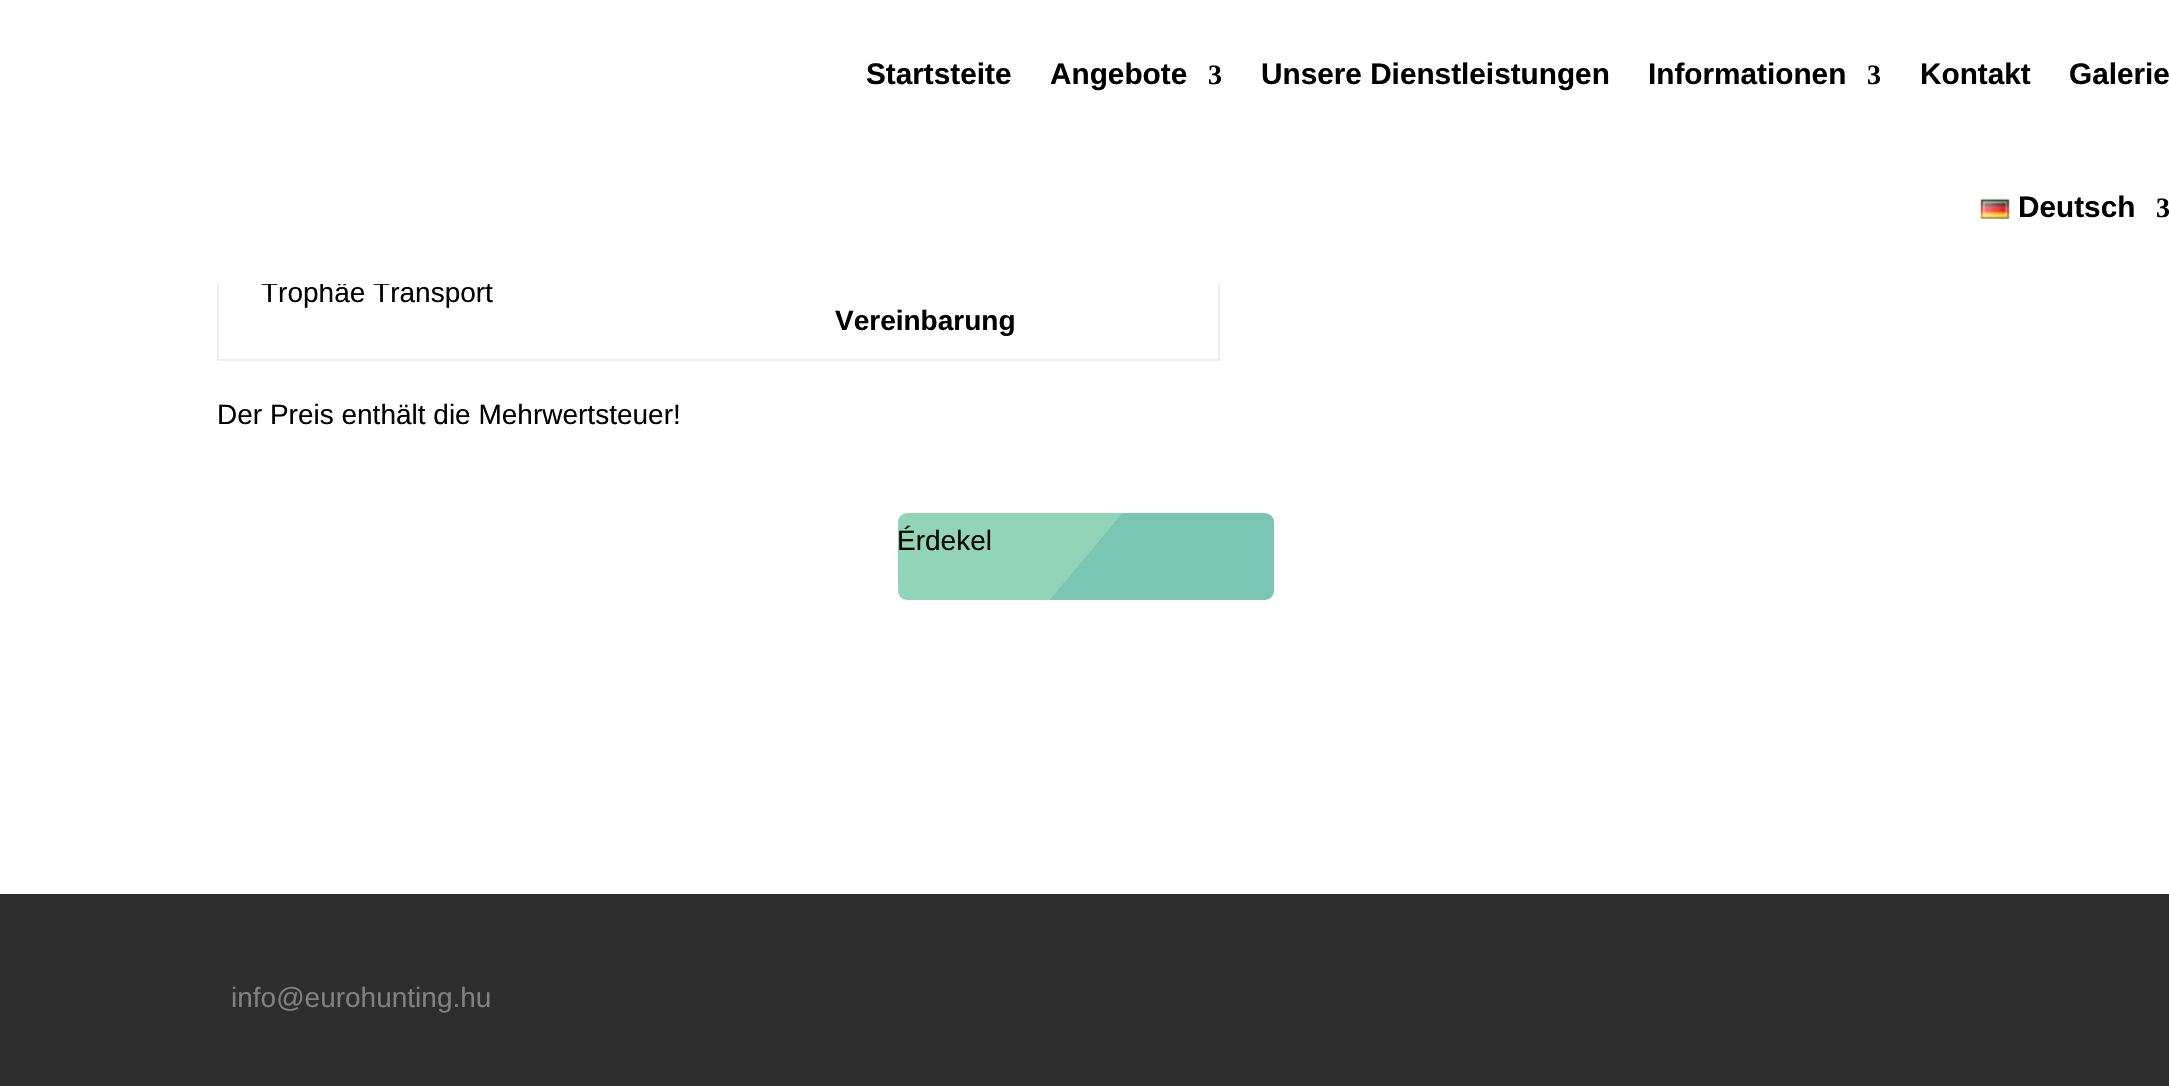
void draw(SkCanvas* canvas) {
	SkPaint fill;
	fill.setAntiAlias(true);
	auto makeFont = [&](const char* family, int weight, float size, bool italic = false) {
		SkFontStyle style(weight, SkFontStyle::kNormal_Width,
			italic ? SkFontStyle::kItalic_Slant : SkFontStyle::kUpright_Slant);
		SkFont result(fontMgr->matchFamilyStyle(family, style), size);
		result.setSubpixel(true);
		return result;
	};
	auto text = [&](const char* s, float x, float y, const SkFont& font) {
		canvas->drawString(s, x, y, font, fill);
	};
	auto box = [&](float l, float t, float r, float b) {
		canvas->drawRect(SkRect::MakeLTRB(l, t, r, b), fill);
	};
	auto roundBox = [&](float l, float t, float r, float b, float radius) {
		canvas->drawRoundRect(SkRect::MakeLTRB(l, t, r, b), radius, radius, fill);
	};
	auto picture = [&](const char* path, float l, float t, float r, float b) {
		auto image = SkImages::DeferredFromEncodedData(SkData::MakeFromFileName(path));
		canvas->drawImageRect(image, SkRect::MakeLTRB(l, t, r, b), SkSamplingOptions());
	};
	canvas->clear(0xFFFFFFFF);
	picture("image0.png", 1980, 198, 2010, 219);
	fill.setColor(0xFFEEEEEE);
	box(1218, 284, 1220, 361);
	box(217, 359, 1220, 361);
	box(217, 284, 219, 361);
	{
		const SkColor colors[] = {0xFF7AC5B4, 0xFF92D4B8};
		const float stops[] = {0.5f, 0.5f};
		const SkPoint ends[] = {{1218, 667}, {954, 446}};
		fill.setShader(SkGradientShader::MakeLinear(ends, colors, stops, 2, SkTileMode::kClamp));
		fill.setAlpha(255);
	}
	roundBox(898, 513, 1274, 600, 9);
	fill.setShader(nullptr);
	fill.setColor(0xFF2D2D2D);
	box(0, 894, 2169, 1086);
	auto font1 = makeFont("Liberation Sans", 700, 29.75f);
	fill.setColor(0xFF000000);
	text("Startsteite", 866, 84, font1);
	text("Angebote", 1050, 84, font1);
	auto font2 = makeFont("Liberation Serif", 700, 28);
	text("3", 1208, 84, font2);
	text("Unsere Dienstleistungen", 1261, 84, font1);
	text("Informationen", 1648, 84, font1);
	text("3", 1867, 84, font2);
	text("Kontakt", 1920, 84, font1);
	text("Galerie", 2069, 84, font1);
	text("Deutsch", 2018, 217, font1);
	text("3", 2156, 217, font2);
	auto font3 = makeFont("Liberation Sans", 400, 28);
	text("Trophäe Transport", 261, 302, font3);
	fill.setColor(0xFFFFFFFF);
	box(261, 281, 490, 284);
	auto font4 = makeFont("Liberation Sans", 700, 28);
	fill.setColor(0xFF000000);
	text("Vereinbarung", 835, 330, font4);
	text("Der Preis enthält die Mehrwertsteuer!", 217, 424, font3);
	text("Érdekel", 897, 550, font3);
	fill.setColor(0xFF808080);
	text("info@eurohunting.hu", 231, 1007, font3);
}
